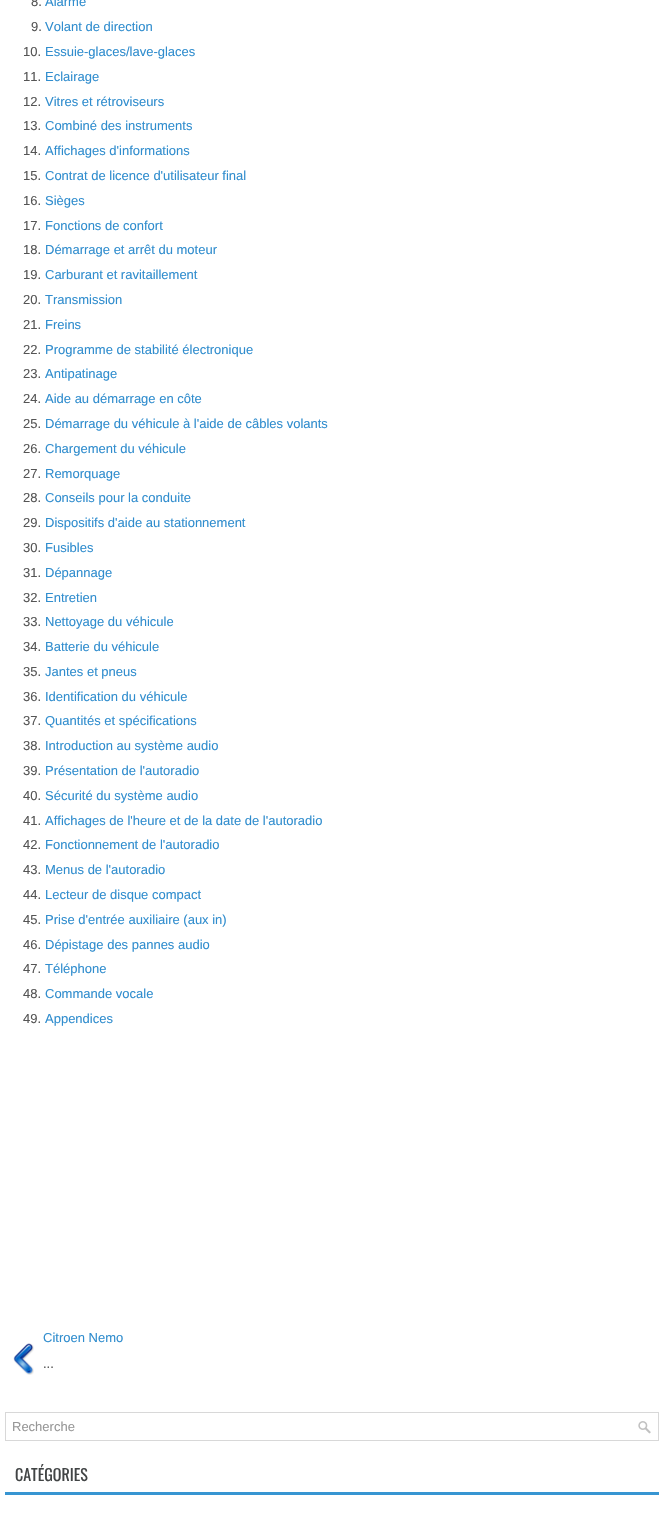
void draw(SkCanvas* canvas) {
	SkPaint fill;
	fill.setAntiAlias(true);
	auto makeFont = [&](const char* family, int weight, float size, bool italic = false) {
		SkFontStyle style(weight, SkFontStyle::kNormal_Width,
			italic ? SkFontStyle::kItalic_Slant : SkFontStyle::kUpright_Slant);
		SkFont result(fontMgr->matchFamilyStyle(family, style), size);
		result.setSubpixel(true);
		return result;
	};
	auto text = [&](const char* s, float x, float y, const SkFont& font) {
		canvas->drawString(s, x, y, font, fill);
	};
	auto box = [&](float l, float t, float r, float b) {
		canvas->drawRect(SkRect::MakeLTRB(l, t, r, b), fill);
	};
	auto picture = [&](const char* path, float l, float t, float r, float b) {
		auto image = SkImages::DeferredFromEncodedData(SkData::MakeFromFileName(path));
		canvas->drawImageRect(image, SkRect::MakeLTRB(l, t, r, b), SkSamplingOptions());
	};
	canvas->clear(0xFFFFFFFF);
	picture("image0.png", 13, 1343, 34, 1375);
	fill.setStyle(SkPaint::kStroke_Style);
	fill.setStrokeWidth(1);
	fill.setColor(0xFFD8D8D8);
	canvas->drawRect(SkRect::MakeLTRB(5.5f, 1412.5f, 658.5f, 1440.5f), fill);
	picture("image1.png", 638, 1421, 651, 1434);
	fill.setStyle(SkPaint::kFill_Style);
	fill.setColor(0xFF3795D2);
	box(5, 1492, 659, 1495);
	auto font1 = makeFont("Liberation Sans", 400, 13);
	fill.setColor(0xFF555555);
	text("8.", 31, 6, font1);
	fill.setColor(0xFF308DCE);
	text("Alarme", 45, 6, font1);
	fill.setColor(0xFF555555);
	text("9.", 31, 31, font1);
	fill.setColor(0xFF308DCE);
	text("Volant de direction", 45, 31, font1);
	fill.setColor(0xFF555555);
	text("10.", 23, 56, font1);
	fill.setColor(0xFF308DCE);
	text("Essuie-glaces/lave-glaces", 45, 56, font1);
	fill.setColor(0xFF555555);
	text("11.", 23, 81, font1);
	fill.setColor(0xFF308DCE);
	text("Eclairage", 45, 81, font1);
	fill.setColor(0xFF555555);
	text("12.", 23, 106, font1);
	fill.setColor(0xFF308DCE);
	text("Vitres et rétroviseurs", 45, 106, font1);
	fill.setColor(0xFF555555);
	text("13.", 23, 130, font1);
	fill.setColor(0xFF308DCE);
	text("Combiné des instruments", 45, 130, font1);
	fill.setColor(0xFF555555);
	text("14.", 23, 155, font1);
	fill.setColor(0xFF308DCE);
	text("Affichages d'informations", 45, 155, font1);
	fill.setColor(0xFF555555);
	text("15.", 23, 180, font1);
	fill.setColor(0xFF308DCE);
	text("Contrat de licence d'utilisateur final", 45, 180, font1);
	fill.setColor(0xFF555555);
	text("16.", 23, 205, font1);
	fill.setColor(0xFF308DCE);
	text("Sièges", 45, 205, font1);
	fill.setColor(0xFF555555);
	text("17.", 23, 230, font1);
	fill.setColor(0xFF308DCE);
	text("Fonctions de confort", 45, 230, font1);
	fill.setColor(0xFF555555);
	text("18.", 23, 254, font1);
	fill.setColor(0xFF308DCE);
	text("Démarrage et arrêt du moteur", 45, 254, font1);
	fill.setColor(0xFF555555);
	text("19.", 23, 279, font1);
	fill.setColor(0xFF308DCE);
	text("Carburant et ravitaillement", 45, 279, font1);
	fill.setColor(0xFF555555);
	text("20.", 23, 304, font1);
	fill.setColor(0xFF308DCE);
	text("Transmission", 45, 304, font1);
	fill.setColor(0xFF555555);
	text("21.", 23, 329, font1);
	fill.setColor(0xFF308DCE);
	text("Freins", 45, 329, font1);
	fill.setColor(0xFF555555);
	text("22.", 23, 354, font1);
	fill.setColor(0xFF308DCE);
	text("Programme de stabilité électronique", 45, 354, font1);
	fill.setColor(0xFF555555);
	text("23.", 23, 378, font1);
	fill.setColor(0xFF308DCE);
	text("Antipatinage", 45, 378, font1);
	fill.setColor(0xFF555555);
	text("24.", 23, 403, font1);
	fill.setColor(0xFF308DCE);
	text("Aide au démarrage en côte", 45, 403, font1);
	fill.setColor(0xFF555555);
	text("25.", 23, 428, font1);
	fill.setColor(0xFF308DCE);
	text("Démarrage du véhicule à l'aide de câbles volants", 45, 428, font1);
	fill.setColor(0xFF555555);
	text("26.", 23, 453, font1);
	fill.setColor(0xFF308DCE);
	text("Chargement du véhicule", 45, 453, font1);
	fill.setColor(0xFF555555);
	text("27.", 23, 478, font1);
	fill.setColor(0xFF308DCE);
	text("Remorquage", 45, 478, font1);
	fill.setColor(0xFF555555);
	text("28.", 23, 502, font1);
	fill.setColor(0xFF308DCE);
	text("Conseils pour la conduite", 45, 502, font1);
	fill.setColor(0xFF555555);
	text("29.", 23, 527, font1);
	fill.setColor(0xFF308DCE);
	text("Dispositifs d'aide au stationnement", 45, 527, font1);
	fill.setColor(0xFF555555);
	text("30.", 23, 552, font1);
	fill.setColor(0xFF308DCE);
	text("Fusibles", 45, 552, font1);
	fill.setColor(0xFF555555);
	text("31.", 23, 577, font1);
	fill.setColor(0xFF308DCE);
	text("Dépannage", 45, 577, font1);
	fill.setColor(0xFF555555);
	text("32.", 23, 602, font1);
	fill.setColor(0xFF308DCE);
	text("Entretien", 45, 602, font1);
	fill.setColor(0xFF555555);
	text("33.", 23, 626, font1);
	fill.setColor(0xFF308DCE);
	text("Nettoyage du véhicule", 45, 626, font1);
	fill.setColor(0xFF555555);
	text("34.", 23, 651, font1);
	fill.setColor(0xFF308DCE);
	text("Batterie du véhicule", 45, 651, font1);
	fill.setColor(0xFF555555);
	text("35.", 23, 676, font1);
	fill.setColor(0xFF308DCE);
	text("Jantes et pneus", 45, 676, font1);
	fill.setColor(0xFF555555);
	text("36.", 23, 701, font1);
	fill.setColor(0xFF308DCE);
	text("Identification du véhicule", 45, 701, font1);
	fill.setColor(0xFF555555);
	text("37.", 23, 725, font1);
	fill.setColor(0xFF308DCE);
	text("Quantités et spécifications", 45, 725, font1);
	fill.setColor(0xFF555555);
	text("38.", 23, 750, font1);
	fill.setColor(0xFF308DCE);
	text("Introduction au système audio", 45, 750, font1);
	fill.setColor(0xFF555555);
	text("39.", 23, 775, font1);
	fill.setColor(0xFF308DCE);
	text("Présentation de l'autoradio", 45, 775, font1);
	fill.setColor(0xFF555555);
	text("40.", 23, 800, font1);
	fill.setColor(0xFF308DCE);
	text("Sécurité du système audio", 45, 800, font1);
	fill.setColor(0xFF555555);
	text("41.", 23, 825, font1);
	fill.setColor(0xFF308DCE);
	text("Affichages de l'heure et de la date de l'autoradio", 45, 825, font1);
	fill.setColor(0xFF555555);
	text("42.", 23, 849, font1);
	fill.setColor(0xFF308DCE);
	text("Fonctionnement de l'autoradio", 45, 849, font1);
	fill.setColor(0xFF555555);
	text("43.", 23, 874, font1);
	fill.setColor(0xFF308DCE);
	text("Menus de l'autoradio", 45, 874, font1);
	fill.setColor(0xFF555555);
	text("44.", 23, 899, font1);
	fill.setColor(0xFF308DCE);
	text("Lecteur de disque compact", 45, 899, font1);
	fill.setColor(0xFF555555);
	text("45.", 23, 924, font1);
	fill.setColor(0xFF308DCE);
	text("Prise d'entrée auxiliaire (aux in)", 45, 924, font1);
	fill.setColor(0xFF555555);
	text("46.", 23, 949, font1);
	fill.setColor(0xFF308DCE);
	text("Dépistage des pannes audio", 45, 949, font1);
	fill.setColor(0xFF555555);
	text("47.", 23, 973, font1);
	fill.setColor(0xFF308DCE);
	text("Téléphone", 45, 973, font1);
	fill.setColor(0xFF555555);
	text("48.", 23, 998, font1);
	fill.setColor(0xFF308DCE);
	text("Commande vocale", 45, 998, font1);
	fill.setColor(0xFF555555);
	text("49.", 23, 1023, font1);
	fill.setColor(0xFF308DCE);
	text("Appendices", 45, 1023, font1);
	text("Citroen Nemo", 43, 1342, font1);
	fill.setColor(0xFF555555);
	text("...", 43, 1368, font1);
	fill.setColor(0xFF979797);
	text("Recherche", 12, 1431, font1);
	auto font2 = makeFont("Oswald", 400, 16);
	fill.setColor(0xFF414445);
	text("CATÉGORIES", 15, 1481, font2);
}
